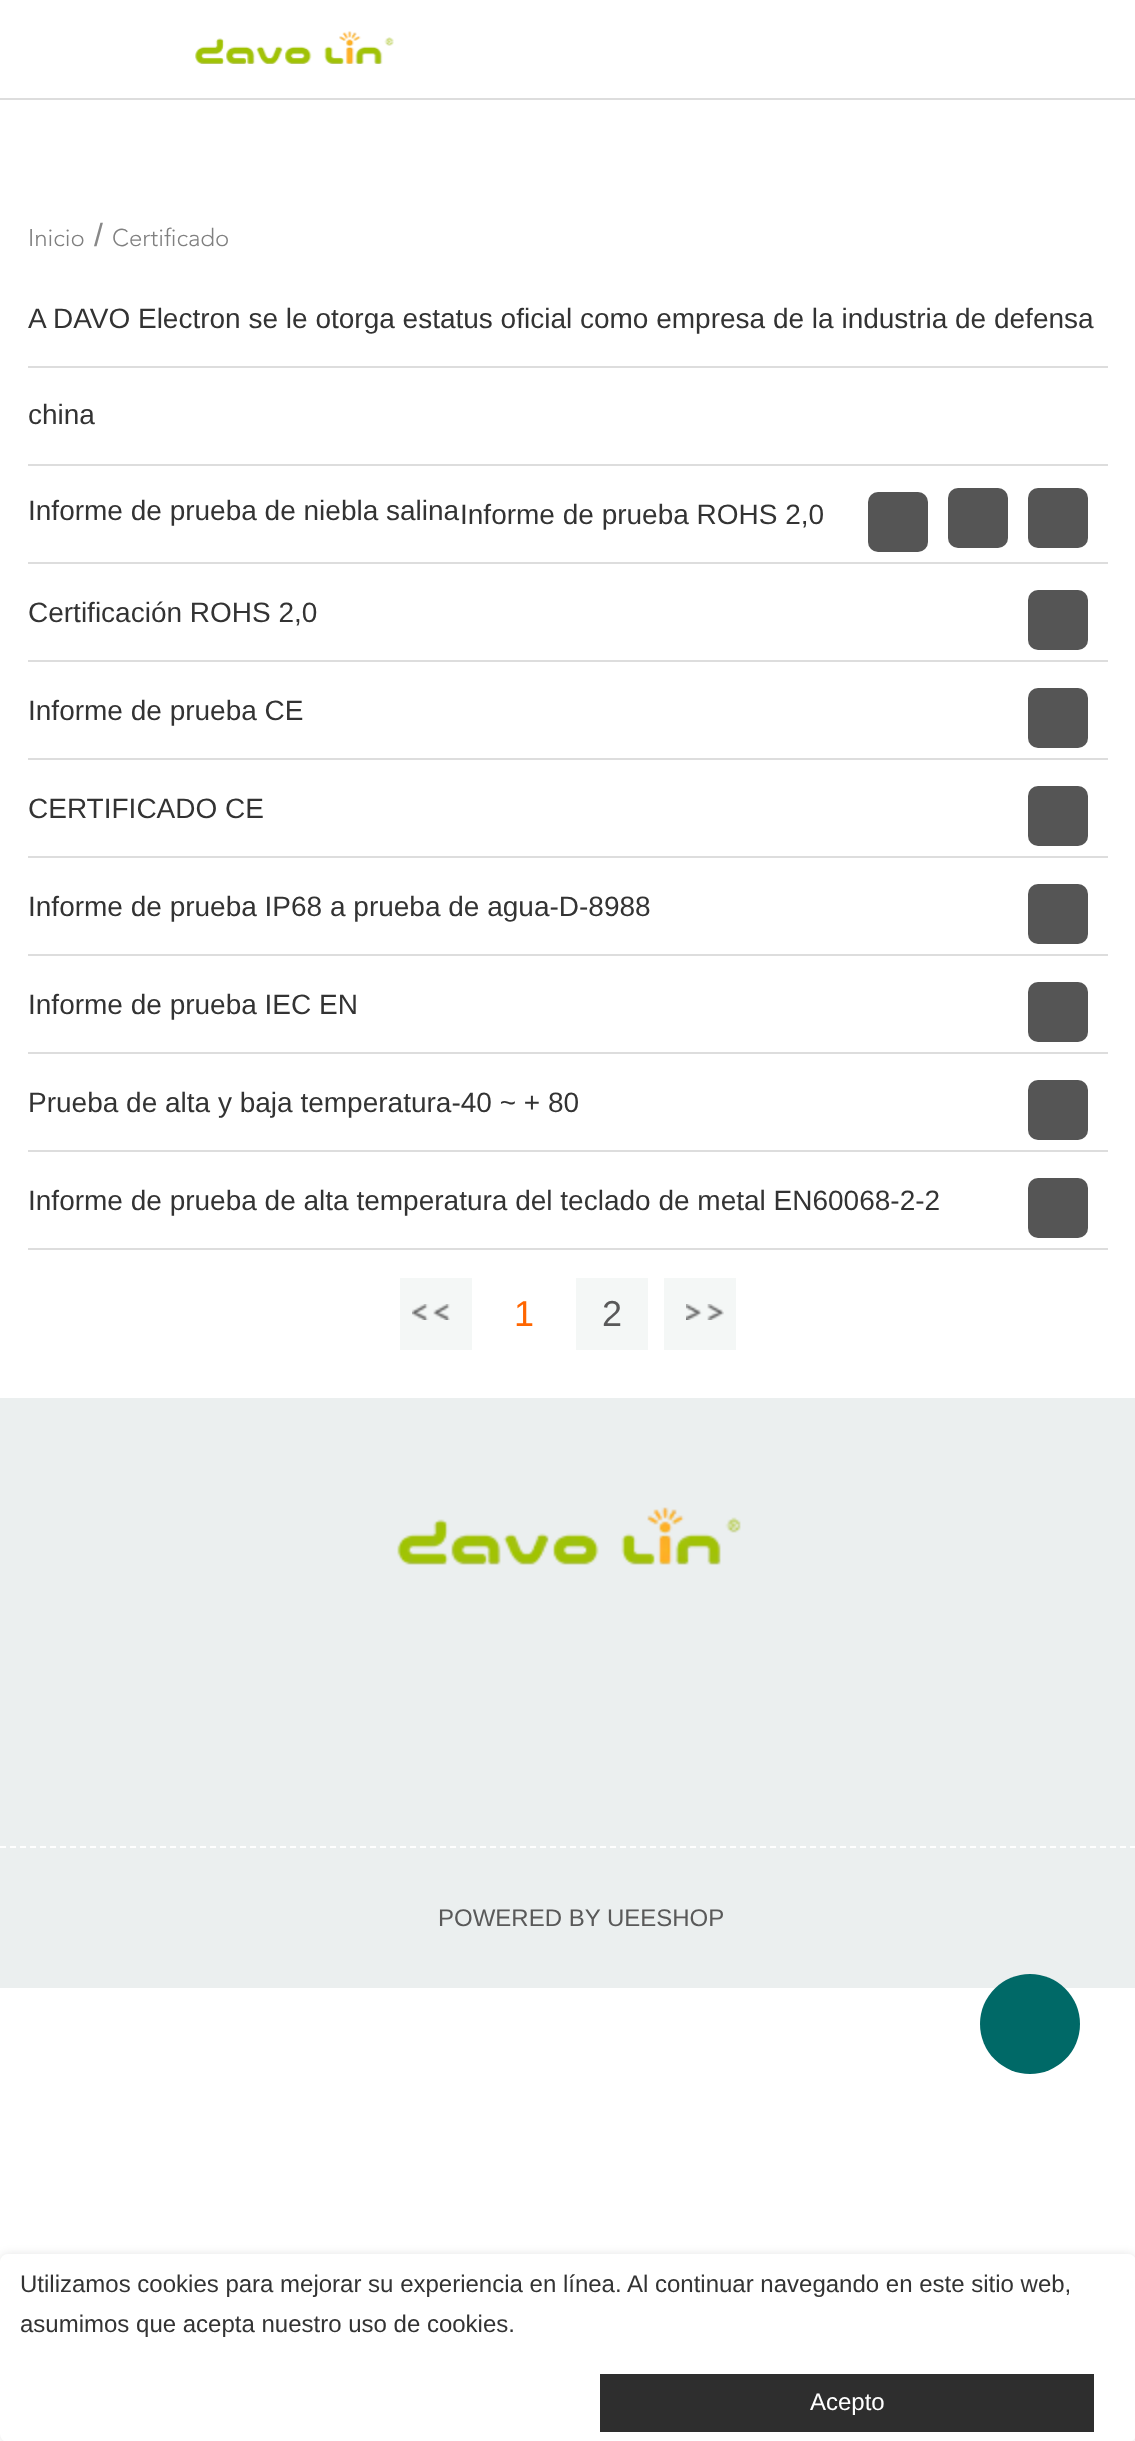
<!DOCTYPE html>
<meta charset="utf-8">
<style>body { margin: 0 } canvas { display: block }</style>
<canvas id="canvas" width="1135" height="2441"></canvas>
<script type="module">
  const canvas = document.getElementById("canvas");
  const g = canvas.getContext("2d");
  g.miterLimit = 4;
  g.fontKerning = "normal";
  function drawText(s, x, y, [font, color]) {
    g.font = font;
    g.fillStyle = color;
    g.fillText(s, x, y);
  }
  function fillBox(x, y, w, h, color) {
    g.fillStyle = color;
    g.fillRect(x, y, w, h);
  }
  function fillRounded(x, y, w, h, r, color) {
    g.fillStyle = color;
    g.beginPath();
    g.roundRect(x, y, w, h, r);
    g.fill();
  }
  async function drawPicture(src, x, y, w, h) {
    const img = new Image();
    img.src = src;
    await img.decode();
    g.drawImage(img, x, y, w, h);
  }

  const s1 = ["300 24px Avenir", "#808080"];
  const s2 = ["32px Liberation Sans", "#888888"];
  const s3 = ["28px Liberation Sans", "#333333"];
  const s4 = ["36px Liberation Sans", "#FF6600"];
  const s5 = ["36px Liberation Sans", "#595959"];
  const s6 = ["24px Liberation Sans", "#595959"];
  const s7 = ["24px Liberation Sans", "#333333"];
  const s8 = ["24px Liberation Sans", "#FFFFFF"];

  fillBox(0, 0, 1135, 2441, "#FFFFFF");
  fillBox(0, 98, 1135, 2, "#DDDDDD");
  await drawPicture("pic1.png", 195, 31, 199, 33);
  drawText("Inicio", 28, 246, s1);
  drawText("/", 94, 246, s2);
  drawText("Certificado", 112, 246, s1);
  fillBox(28, 366, 1080, 2, "#DDDDDD");
  drawText("A DAVO Electron se le otorga estatus oficial como empresa de la industria de defensa", 28, 328, s3);
  drawText("china", 28, 424, s3);
  fillRounded(1028, 488, 60, 60, 10, "#555555");
  fillBox(28, 464, 1080, 2, "#DDDDDD");
  drawText("Informe de prueba de niebla salina", 28, 520, s3);
  fillRounded(948, 488, 60, 60, 10, "#555555");
  fillBox(28, 562, 1080, 2, "#DDDDDD");
  drawText("Informe de prueba ROHS 2,0", 460, 524, s3);
  fillRounded(868, 492, 60, 60, 10, "#555555");
  fillBox(28, 660, 1080, 2, "#DDDDDD");
  drawText("Certificación ROHS 2,0", 28, 622, s3);
  fillRounded(1028, 590, 60, 60, 10, "#555555");
  fillBox(28, 758, 1080, 2, "#DDDDDD");
  drawText("Informe de prueba CE", 28, 720, s3);
  fillRounded(1028, 688, 60, 60, 10, "#555555");
  fillBox(28, 856, 1080, 2, "#DDDDDD");
  drawText("CERTIFICADO CE", 28, 818, s3);
  fillRounded(1028, 786, 60, 60, 10, "#555555");
  fillBox(28, 954, 1080, 2, "#DDDDDD");
  drawText("Informe de prueba IP68 a prueba de agua-D-8988", 28, 916, s3);
  fillRounded(1028, 884, 60, 60, 10, "#555555");
  fillBox(28, 1052, 1080, 2, "#DDDDDD");
  drawText("Informe de prueba IEC EN", 28, 1014, s3);
  fillRounded(1028, 982, 60, 60, 10, "#555555");
  fillBox(28, 1150, 1080, 2, "#DDDDDD");
  drawText("Prueba de alta y baja temperatura-40 ~ + 80", 28, 1112, s3);
  fillRounded(1028, 1080, 60, 60, 10, "#555555");
  fillBox(28, 1248, 1080, 2, "#DDDDDD");
  drawText("Informe de prueba de alta temperatura del teclado de metal EN60068-2-2", 28, 1210, s3);
  fillRounded(1028, 1178, 60, 60, 10, "#555555");
  fillBox(400, 1278, 72, 72, "#F4F7F6");
  await drawPicture("pic2.png", 412, 1304, 38, 16);
  drawText("1", 514, 1326, s4);
  fillBox(576, 1278, 72, 72, "#F4F7F6");
  drawText("2", 602, 1326, s5);
  fillBox(664, 1278, 72, 72, "#F4F7F6");
  await drawPicture("pic3.png", 686, 1304, 38, 16);
  fillBox(0, 1398, 1135, 590, "#EBEFEF");
  await drawPicture("pic4.png", 397, 1507, 344, 58);
  g.beginPath();
  g.moveTo(0, 1847);
  g.lineTo(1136, 1847);
  g.strokeStyle = "#FFFFFF";
  g.lineWidth = 2;
  g.setLineDash([6, 4]);
  g.stroke();
  drawText("POWERED BY UEESHOP", 438, 1926, s6);
  g.fillStyle = "#006967";
  g.beginPath();
  g.arc(1030, 2024, 50, 0, Math.PI * 2);
  g.fill();
  g.fillStyle = "rgba(0, 0, 0, 0.1)";
  g.filter = "blur(5px)";
  g.beginPath();
  g.roundRect(0, 2254, 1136, 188, 8);
  g.fill();
  g.filter = "none";
  fillRounded(0, 2254, 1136, 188, 8, "#FFFFFF");
  drawText("Utilizamos cookies para mejorar su experiencia en línea. Al continuar navegando en este sitio web,", 20, 2292, s7);
  drawText("asumimos que acepta nuestro uso de cookies.", 20, 2332, s7);
  fillBox(600, 2374, 494, 58, "#2E2E2E");
  drawText("Acepto", 810, 2410, s8);
</script>
